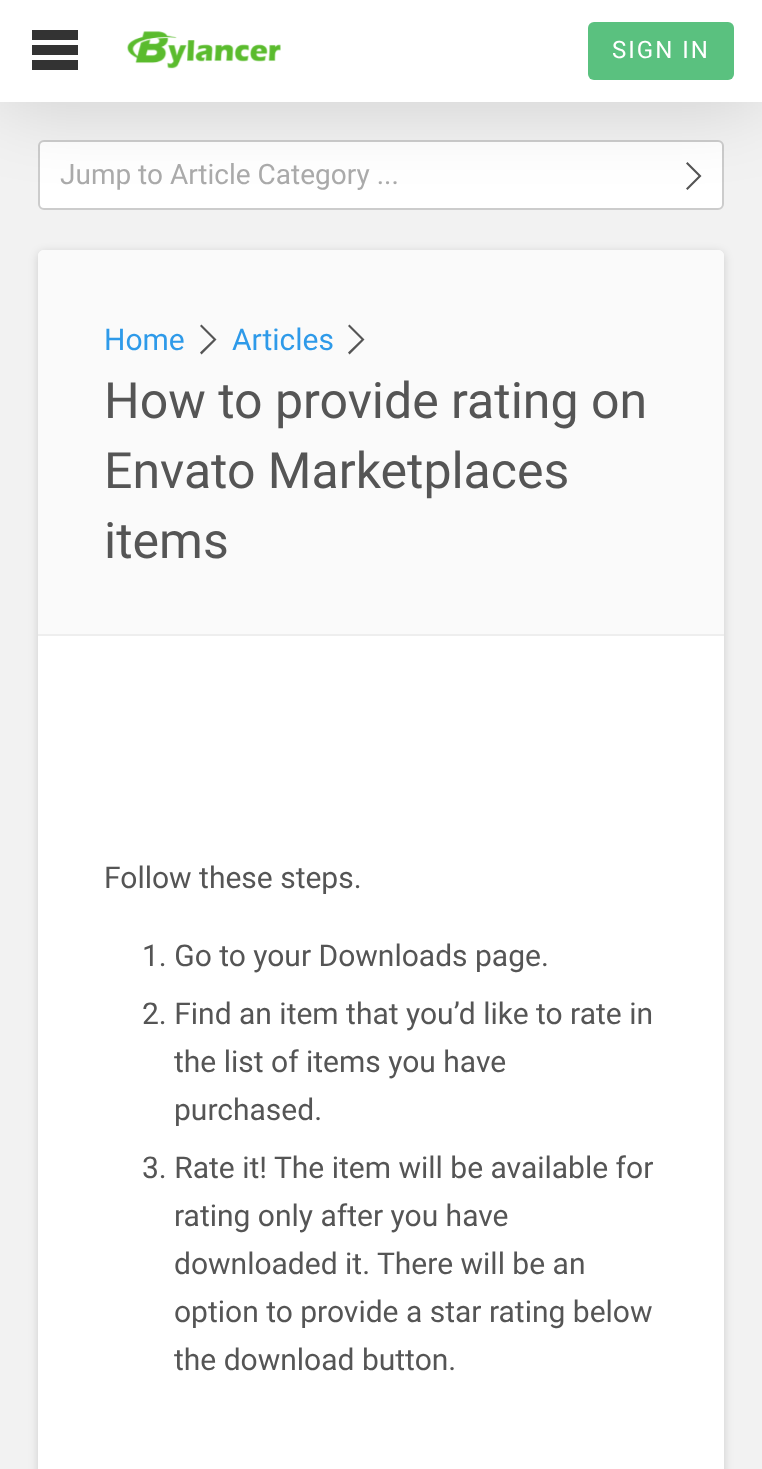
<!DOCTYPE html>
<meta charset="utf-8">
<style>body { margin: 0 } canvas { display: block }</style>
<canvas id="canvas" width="762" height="1469"></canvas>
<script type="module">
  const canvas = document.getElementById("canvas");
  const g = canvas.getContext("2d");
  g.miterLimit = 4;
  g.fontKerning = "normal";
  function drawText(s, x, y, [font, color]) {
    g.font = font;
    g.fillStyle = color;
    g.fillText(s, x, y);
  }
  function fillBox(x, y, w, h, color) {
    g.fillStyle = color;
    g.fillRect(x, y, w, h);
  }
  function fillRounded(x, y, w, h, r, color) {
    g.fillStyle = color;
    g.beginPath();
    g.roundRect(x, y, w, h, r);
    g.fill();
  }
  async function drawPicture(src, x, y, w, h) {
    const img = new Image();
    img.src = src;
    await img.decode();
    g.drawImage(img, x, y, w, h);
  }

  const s1 = ["24px Roboto", "#FFFFFF"];
  const s2 = ["28px Roboto", "#AAAAAA"];
  const s3 = ["30px Roboto", "#2E9AE9"];
  const s4 = ["50px Roboto", "#555555"];
  const s5 = ["30px Roboto", "#555555"];

  fillBox(0, 0, 762, 1469, "#F2F2F2");
  g.fillStyle = "#FFFFFF";
  g.beginPath();
  g.roundRect(39, 141, 684, 68, 5);
  g.fill();
  g.strokeStyle = "#CCCCCC";
  g.lineWidth = 2;
  g.stroke();
  g.fillStyle = "#555555";
  g.beginPath();
  g.moveTo(687.5, 162);
  g.lineTo(701.5, 176);
  g.lineTo(687.5, 190);
  g.lineTo(686, 188.5);
  g.lineTo(698.5, 176);
  g.lineTo(686, 163.5);
  g.closePath();
  g.fill();
  g.fillStyle = "rgba(0, 0, 0, 0.15)";
  g.filter = "blur(40px)";
  g.beginPath();
  g.rect(0, 2, 762, 102);
  g.fill();
  g.filter = "none";
  fillBox(0, 0, 762, 102, "#FFFFFF");
  g.fillStyle = "#333333";
  g.beginPath();
  g.moveTo(32, 30);
  g.lineTo(78, 30);
  g.lineTo(78, 40);
  g.lineTo(32, 40);
  g.closePath();
  g.moveTo(32, 45);
  g.lineTo(78, 45);
  g.lineTo(78, 55);
  g.lineTo(32, 55);
  g.closePath();
  g.moveTo(32, 60);
  g.lineTo(78, 60);
  g.lineTo(78, 70);
  g.lineTo(32, 70);
  g.closePath();
  g.fill();
  await drawPicture("pic1.png", 127, 31, 154, 38);
  fillRounded(588, 22, 146, 58, 6, "#5AC17F");
  g.letterSpacing = "2px";
  drawText("SIGN IN", 612, 58, s1);
  g.letterSpacing = "0px";
  drawText("Jump to Article Category ...", 60, 184, s2);
  g.fillStyle = "rgba(0, 0, 0, 0.15)";
  g.filter = "blur(5px)";
  g.beginPath();
  g.roundRect(38, 252, 686, 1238, 6);
  g.fill();
  g.filter = "none";
  fillRounded(38, 250, 686, 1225, 6, "#FFFFFF");
  g.fillStyle = "#FAFAFA";
  g.beginPath();
  g.roundRect(38, 250, 686, 386, [6, 6, 0, 0]);
  g.fill();
  fillBox(38, 634, 686, 2, "#EEEEEE");
  drawText("Home", 104, 350, s3);
  g.fillStyle = "#555555";
  g.beginPath();
  g.moveTo(201.5, 324.5);
  g.lineTo(216.5, 339.5);
  g.lineTo(201.5, 354.5);
  g.lineTo(200, 352.5);
  g.lineTo(213.5, 339.5);
  g.lineTo(200, 326);
  g.closePath();
  g.fill();
  drawText("Articles", 232, 350, s3);
  g.fillStyle = "#555555";
  g.beginPath();
  g.moveTo(349.5, 324.5);
  g.lineTo(364.5, 339.5);
  g.lineTo(349.5, 354.5);
  g.lineTo(348, 352.5);
  g.lineTo(361.5, 339.5);
  g.lineTo(348, 326);
  g.closePath();
  g.fill();
  drawText("How to provide rating on", 104, 418, s4);
  drawText("Envato Marketplaces", 104, 488, s4);
  drawText("items", 104, 558, s4);
  drawText("Follow these steps.", 104, 888, s5);
  drawText("1. Go to your Downloads page.", 142, 966, s5);
  drawText("2. Find an item that you’d like to rate in", 142, 1024, s5);
  drawText("the list of items you have", 174, 1072, s5);
  drawText("purchased.", 174, 1120, s5);
  drawText("3. Rate it! The item will be available for", 142, 1178, s5);
  drawText("rating only after you have", 174, 1226, s5);
  drawText("downloaded it. There will be an", 174, 1274, s5);
  drawText("option to provide a star rating below", 174, 1322, s5);
  drawText("the download button.", 174, 1370, s5);
</script>
